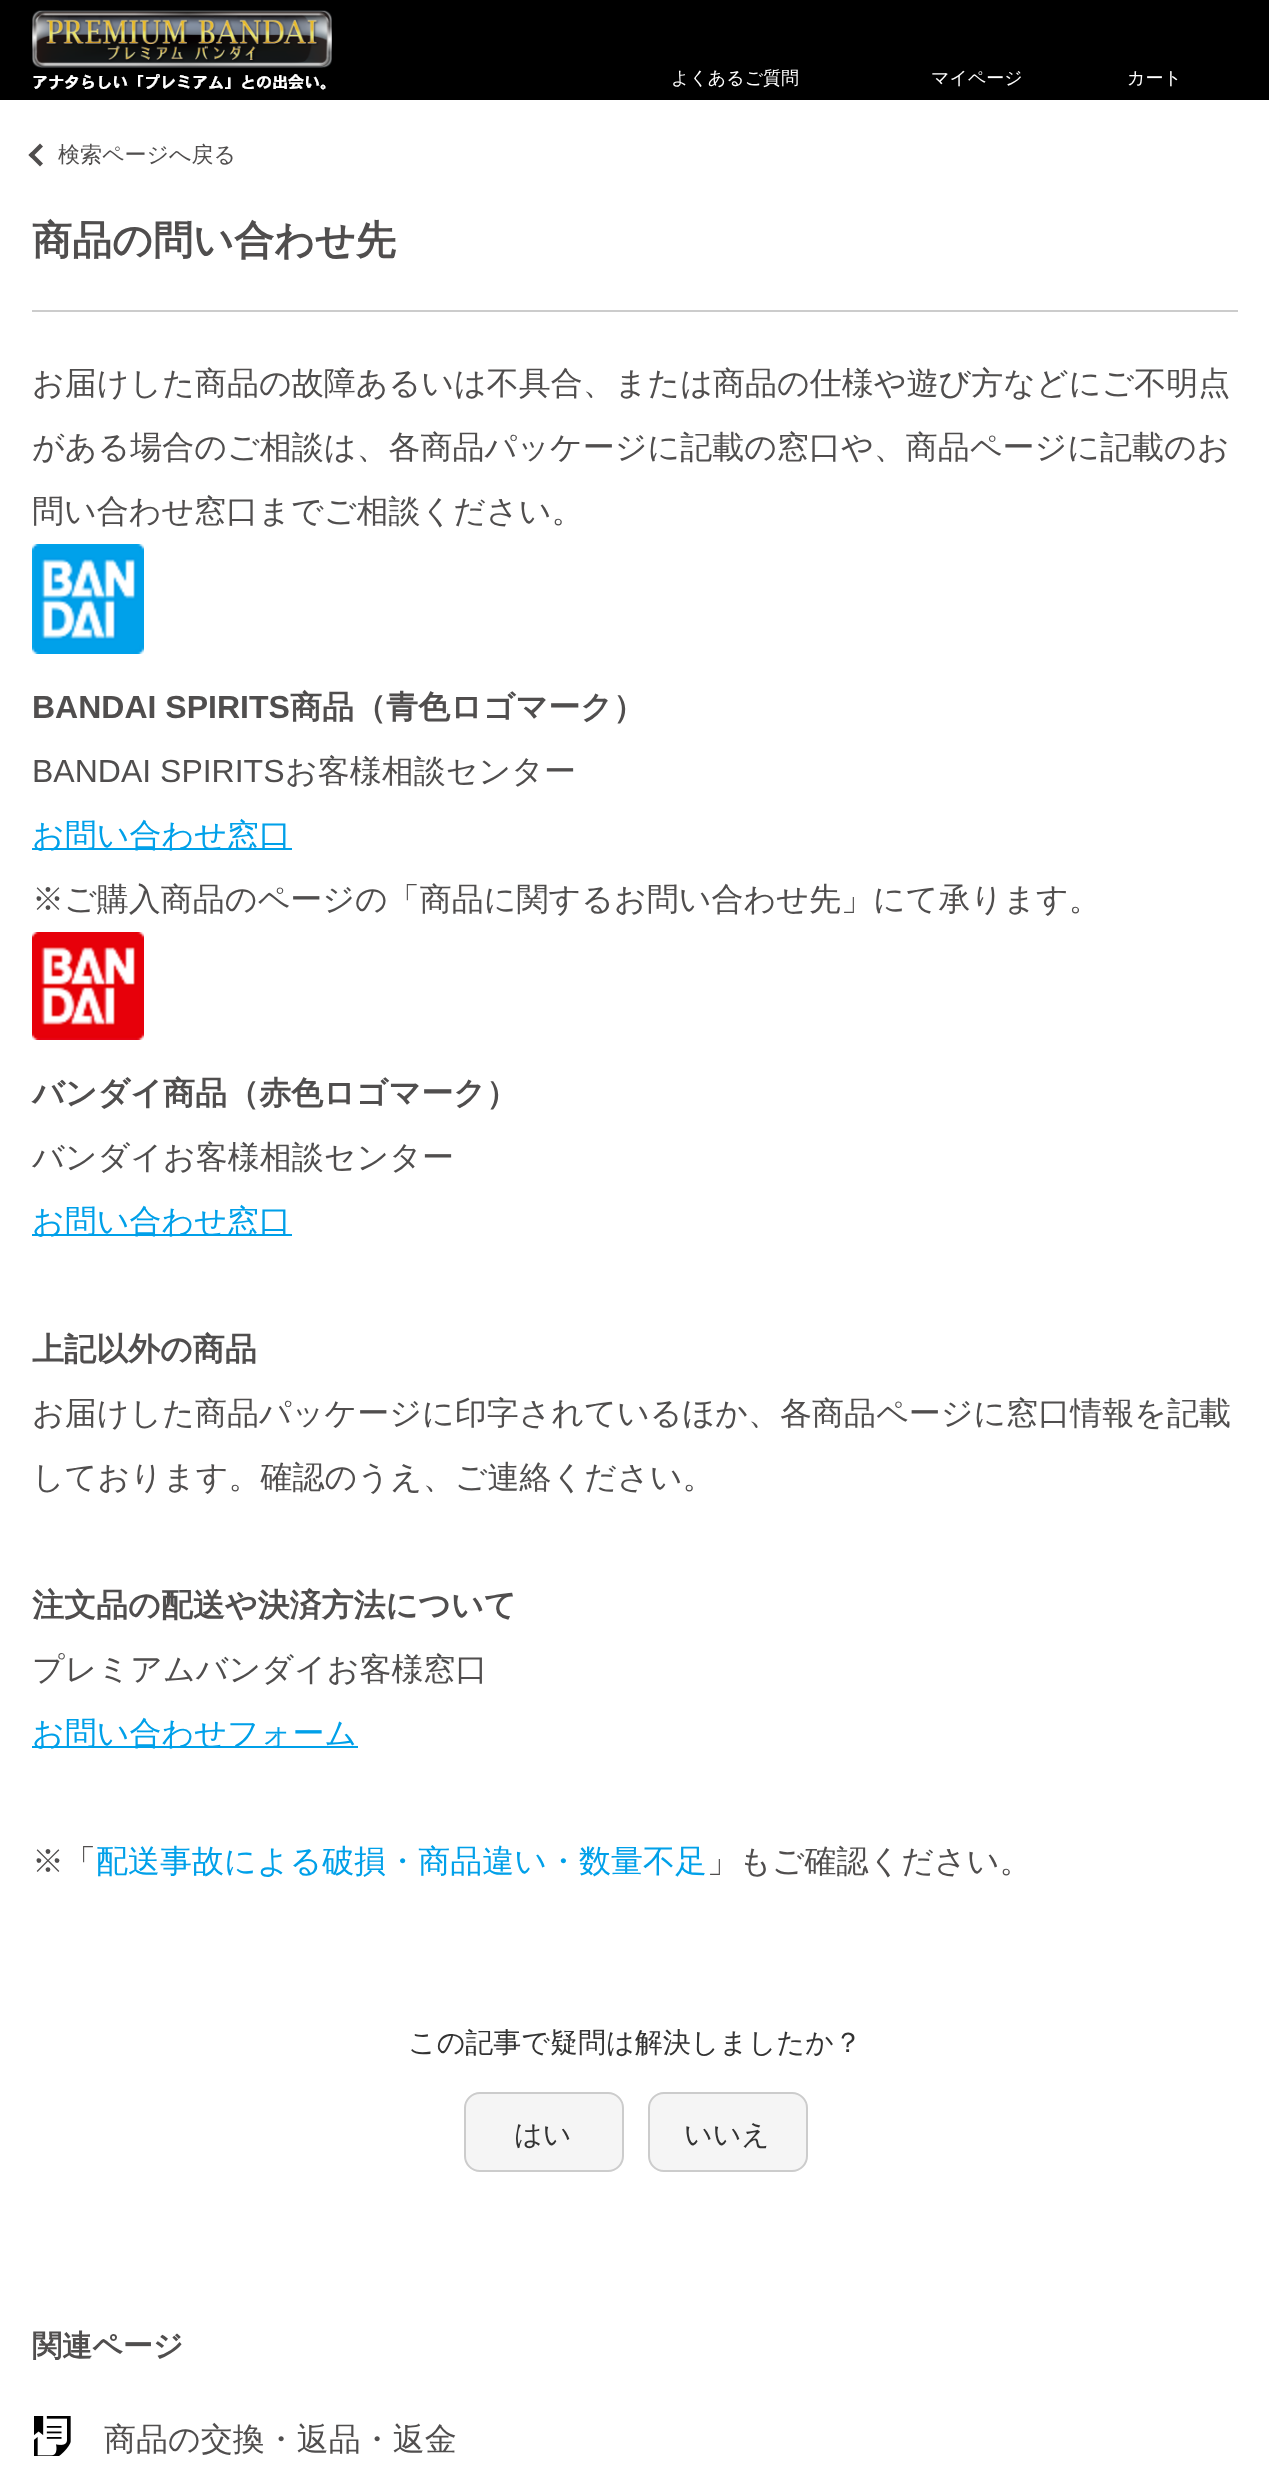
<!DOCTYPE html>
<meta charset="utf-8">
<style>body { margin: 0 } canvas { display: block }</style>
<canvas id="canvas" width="1269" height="2489"></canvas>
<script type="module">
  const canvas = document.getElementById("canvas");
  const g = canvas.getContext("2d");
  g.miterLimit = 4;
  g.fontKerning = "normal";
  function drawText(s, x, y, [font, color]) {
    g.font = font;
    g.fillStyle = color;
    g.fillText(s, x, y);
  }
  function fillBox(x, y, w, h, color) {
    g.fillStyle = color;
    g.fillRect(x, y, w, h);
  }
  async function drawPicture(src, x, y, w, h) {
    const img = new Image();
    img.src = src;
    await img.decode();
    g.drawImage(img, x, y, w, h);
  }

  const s1 = ["500 18px WenQuanYi Zen Hei", "#FFFFFF"];
  const s2 = ["500 22px WenQuanYi Zen Hei", "#504E4E"];
  const s3 = ["bold 40px WenQuanYi Zen Hei", "#504E4E"];
  const s4 = ["500 32px WenQuanYi Zen Hei", "#504E4E"];
  const s5 = ["bold 32px Liberation Sans", "#504E4E"];
  const s6 = ["bold 32px WenQuanYi Zen Hei", "#504E4E"];
  const s7 = ["32px Liberation Sans", "#504E4E"];
  const s8 = ["500 32px WenQuanYi Zen Hei", "#00A0E9"];
  const s9 = ["500 28px WenQuanYi Zen Hei", "#333333"];
  const s10 = ["bold 30px WenQuanYi Zen Hei", "#504E4E"];

  fillBox(0, 0, 1269, 2489, "#FFFFFF");
  fillBox(0, 0, 1269, 100, "#000000");
  await drawPicture("pic1.png", 32, 10, 300, 80);
  drawText("よくあるご質問", 671, 84, s1);
  drawText("マイページ", 931, 84, s1);
  drawText("カート", 1127, 84, s1);
  g.fillStyle = "#504E4E";
  g.beginPath();
  g.moveTo(28.5, 155);
  g.lineTo(40, 143.5);
  g.lineTo(43, 146.5);
  g.lineTo(31.5, 158);
  g.closePath();
  g.fill();
  g.beginPath();
  g.moveTo(28.5, 155);
  g.lineTo(31.5, 152);
  g.lineTo(43, 163.5);
  g.lineTo(40, 166.5);
  g.closePath();
  g.fill();
  drawText("検索ページへ戻る", 58, 162, s2);
  fillBox(32, 310, 1206, 2, "#CCCCCC");
  drawText("商品の問い合わせ先", 32, 254, s3);
  drawText("お届けした商品の故障あるいは不具合、または商品の仕様や遊び方などにご不明点", 32, 394, s4);
  drawText("がある場合のご相談は、各商品パッケージに記載の窓口や、商品ページに記載のお", 32, 458, s4);
  drawText("問い合わせ窓口までご相談ください。", 32, 522, s4);
  await drawPicture("pic2.png", 32, 544, 112, 110);
  drawText("BANDAI SPIRITS", 32, 718, s5);
  drawText("商品（青色ロゴマーク）", 290, 718, s6);
  drawText("BANDAI SPIRITS", 32, 782, s7);
  drawText("お客様相談センター", 285, 782, s4);
  fillBox(32, 848, 260, 2, "#00A0E9");
  drawText("お問い合わせ窓口", 32, 846, s8);
  drawText("※ご購入商品のページの「商品に関するお問い合わせ先」にて承ります。", 32, 910, s4);
  await drawPicture("pic3.png", 32, 932, 112, 108);
  drawText("バンダイ商品（赤色ロゴマーク）", 32, 1104, s6);
  drawText("バンダイお客様相談センター", 32, 1168, s4);
  fillBox(32, 1234, 260, 2, "#00A0E9");
  drawText("お問い合わせ窓口", 32, 1232, s8);
  drawText("上記以外の商品", 32, 1360, s6);
  drawText("お届けした商品パッケージに印字されているほか、各商品ページに窓口情報を記載", 32, 1424, s4);
  drawText("しております。確認のうえ、ご連絡ください。", 32, 1488, s4);
  drawText("注文品の配送や決済方法について", 32, 1616, s6);
  drawText("プレミアムバンダイお客様窓口", 32, 1680, s4);
  fillBox(32, 1746, 326, 2, "#00A0E9");
  drawText("お問い合わせフォーム", 32, 1744, s8);
  drawText("※「", 32, 1872, s4);
  drawText("配送事故による破損・商品違い・数量不足", 96, 1872, s8);
  drawText("」もご確認ください。", 707, 1872, s4);
  drawText("この記事で疑問は解決しましたか？", 408, 2052, s9);
  g.fillStyle = "#F5F5F5";
  g.beginPath();
  g.roundRect(465, 2093, 158, 78, 15);
  g.fill();
  g.strokeStyle = "#CCCCCC";
  g.lineWidth = 2;
  g.stroke();
  drawText("はい", 514, 2144, s9);
  g.fillStyle = "#F5F5F5";
  g.beginPath();
  g.roundRect(649, 2093, 158, 78, 15);
  g.fill();
  g.stroke();
  drawText("いいえ", 684, 2144, s9);
  drawText("関連ページ", 32, 2356, s10);
  await drawPicture("pic4.png", 34, 2416, 37, 40);
  drawText("商品の交換・返品・返金", 104, 2450, s4);
</script>
